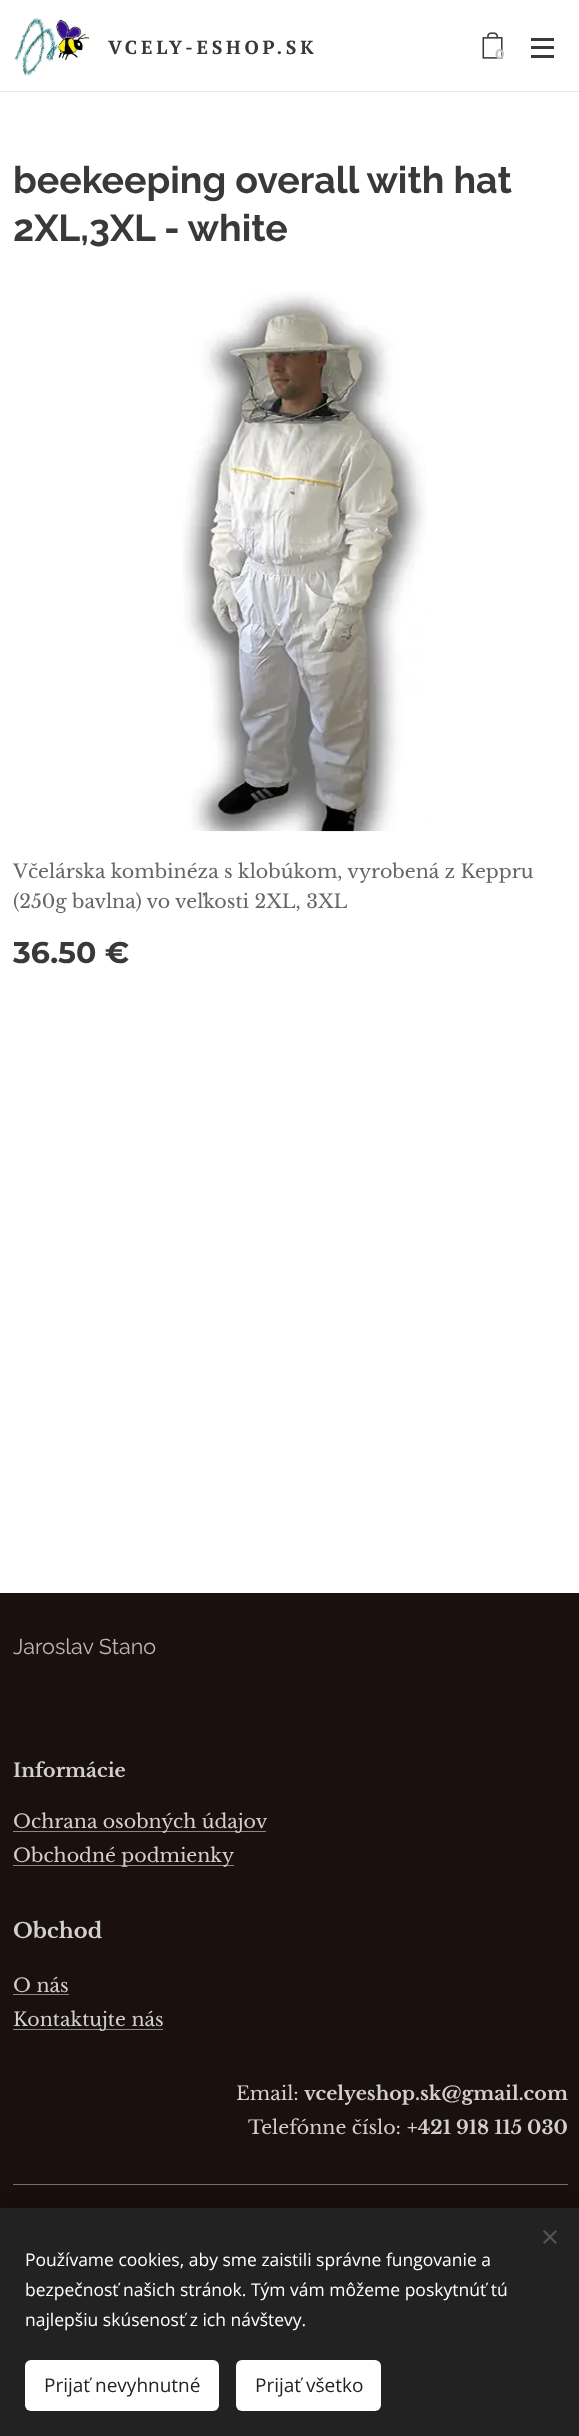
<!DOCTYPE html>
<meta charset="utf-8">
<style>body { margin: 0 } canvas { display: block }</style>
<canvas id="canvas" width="579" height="2436"></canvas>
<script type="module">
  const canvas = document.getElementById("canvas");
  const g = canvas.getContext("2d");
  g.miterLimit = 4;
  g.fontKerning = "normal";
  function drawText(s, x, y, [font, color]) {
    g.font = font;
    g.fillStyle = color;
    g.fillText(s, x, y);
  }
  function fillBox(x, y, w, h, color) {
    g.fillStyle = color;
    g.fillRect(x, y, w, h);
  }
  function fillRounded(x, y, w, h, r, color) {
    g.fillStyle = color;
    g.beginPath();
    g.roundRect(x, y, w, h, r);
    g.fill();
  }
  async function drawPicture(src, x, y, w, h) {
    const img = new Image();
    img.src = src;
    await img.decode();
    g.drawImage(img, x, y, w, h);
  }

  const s1 = ["bold 19px PT Serif", "#393939"];
  const s2 = ["bold 14px Montserrat", "#C4C4C4"];
  const s3 = ["bold 37.5px Raleway", "#393939"];
  const s4 = ["19px Libre Baskerville", "#666666"];
  const s5 = ["bold 30px Montserrat", "#393939"];
  const s6 = ["21.5px Raleway", "#BAB7B7"];
  const s7 = ["bold 19px Libre Baskerville", "#D1CFCF"];
  const s8 = ["19px Libre Baskerville", "#D1CFCF"];
  const s9 = ["bold 21px Libre Baskerville", "#D1CFCF"];
  const s10 = ["17.5px Open Sans", "#FFFFFF"];
  const s11 = ["19px Open Sans", "#222222"];

  fillBox(0, 0, 579, 2436, "#FFFFFF");
  await drawPicture("pic1.png", 14, 17, 76, 59);
  g.letterSpacing = "3.75px";
  drawText("VCELY-ESHOP.SK", 108, 54, s1);
  await drawPicture("pic2.png", 482, 32, 21, 27);
  g.letterSpacing = "0px";
  drawText("0", 495, 59, s2);
  fillBox(531, 46, 23, 3, "#393939");
  fillBox(531, 38, 23, 3, "#393939");
  fillBox(531, 55, 23, 3, "#393939");
  fillBox(0, 91, 579, 1, "#E8E8E8");
  drawText("beekeeping overall with hat", 13, 193, s3);
  drawText("2XL,3XL - white", 13, 241, s3);
  await drawPicture("pic3.png", 182, 291, 245, 541);
  drawText("Včelárska kombinéza s klobúkom, vyrobená z Keppru", 13, 878, s4);
  drawText("(250g bavlna) vo veľkosti 2XL, 3XL", 13, 908, s4);
  drawText("36.50 €", 13, 963, s5);
  fillBox(0, 1593, 579, 615, "#1A100E");
  drawText("Jaroslav Stano", 13, 1654, s6);
  drawText("Informácie", 13, 1777, s7);
  fillBox(13, 1831, 253, 1, "#8D8887");
  drawText("Ochrana osobných údajov", 13, 1828, s8);
  fillBox(13, 1865, 221, 1, "#8D8887");
  drawText("Obchodné podmienky", 13, 1862, s8);
  drawText("Obchod", 13, 1938, s9);
  drawText("O nás", 13, 1992, s8);
  fillBox(13, 1994, 56, 1, "#8D8887");
  fillBox(13, 2029, 150, 1, "#8D8887");
  drawText("Kontaktujte nás", 13, 2026, s8);
  drawText("Email:", 236, 2100, s8);
  drawText("vcelyeshop.sk@gmail.com", 304, 2100, s7);
  drawText("Telefónne číslo:", 248, 2134, s8);
  drawText("+421 918 115 030", 407, 2134, s7);
  fillBox(13, 2184, 555, 1, "#76706E");
  g.fillStyle = "rgba(0, 0, 0, 0.33)";
  g.filter = "blur(15.5px)";
  g.beginPath();
  g.rect(0, 2208, 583, 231);
  g.fill();
  g.filter = "none";
  fillBox(0, 2208, 579, 228, "#222222");
  g.fillStyle = "#555555";
  g.beginPath();
  g.moveTo(543, 2242.5);
  g.lineTo(555.5, 2230);
  g.lineTo(557, 2231.5);
  g.lineTo(544.5, 2244);
  g.closePath();
  g.fill();
  g.beginPath();
  g.moveTo(544.5, 2230);
  g.lineTo(557, 2242.5);
  g.lineTo(555.5, 2244);
  g.lineTo(543, 2231.5);
  g.closePath();
  g.fill();
  drawText("Používame cookies, aby sme zaistili správne fungovanie a", 25, 2266, s10);
  drawText("bezpečnosť našich stránok. Tým vám môžeme poskytnúť tú", 25, 2296, s10);
  drawText("najlepšiu skúsenosť z ich návštevy.", 25, 2326, s10);
  fillRounded(25, 2360, 194, 51, 6, "#FFFFFF");
  drawText("Prijať nevyhnutné", 44, 2392, s11);
  fillRounded(236, 2360, 145, 51, 6, "#FFFFFF");
  drawText("Prijať všetko", 255, 2392, s11);
</script>
